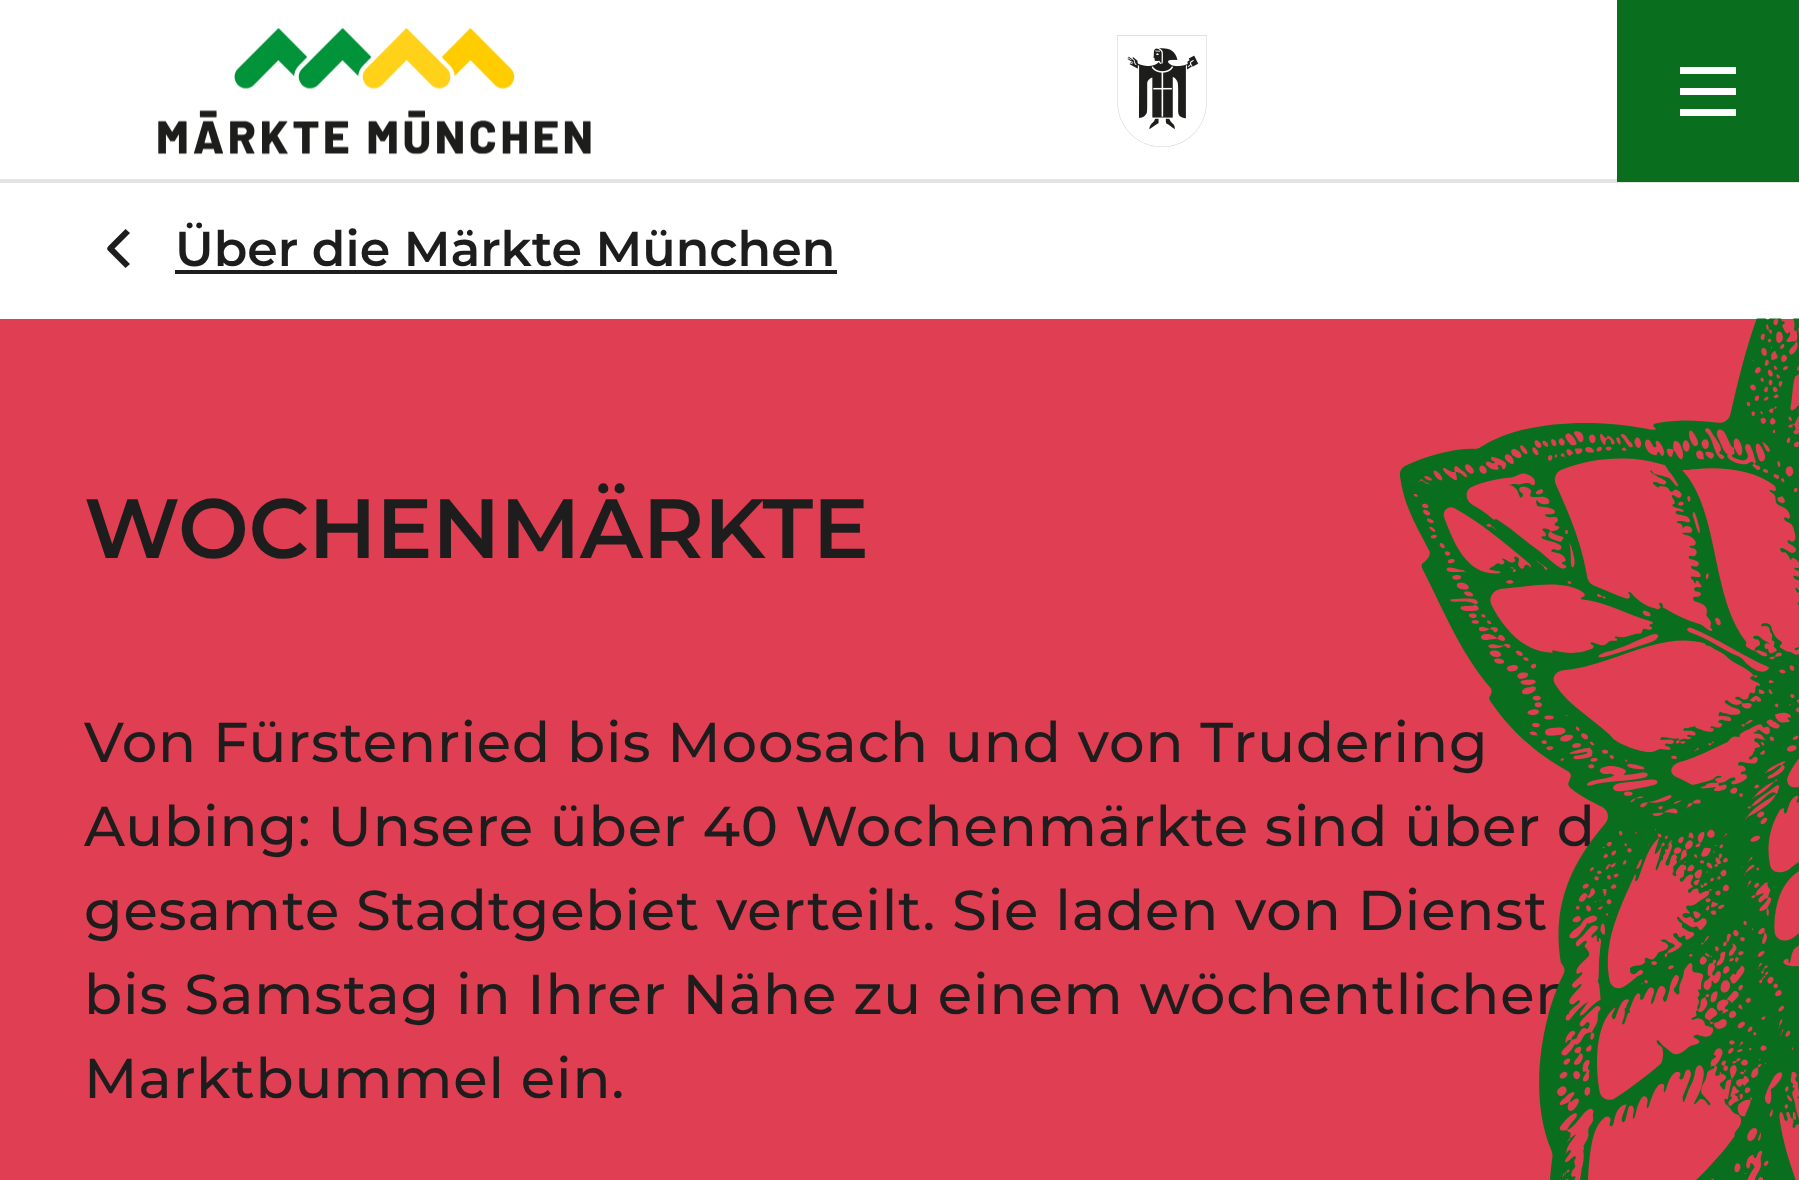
<!DOCTYPE html>
<meta charset="utf-8">
<style>body { margin: 0 } canvas { display: block }</style>
<canvas id="canvas" width="1799" height="1180"></canvas>
<script type="module">
  const canvas = document.getElementById("canvas");
  const g = canvas.getContext("2d");
  g.miterLimit = 4;
  g.fontKerning = "normal";
  function drawText(s, x, y, [font, color]) {
    g.font = font;
    g.fillStyle = color;
    g.fillText(s, x, y);
  }
  function fillBox(x, y, w, h, color) {
    g.fillStyle = color;
    g.fillRect(x, y, w, h);
  }
  async function drawPicture(src, x, y, w, h) {
    const img = new Image();
    img.src = src;
    await img.decode();
    g.drawImage(img, x, y, w, h);
  }

  const s1 = ["100 49px Montserrat", "#1D1D1D"];
  const s2 = ["100 84px Montserrat", "#1D1D1D"];
  const s3 = ["100 56px 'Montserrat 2'", "#1D1D1D"];

  fillBox(0, 0, 1799, 1180, "#FFFFFF");
  fillBox(0, 179, 1799, 4, "#E4E4E4");
  await drawPicture("pic1.png", 158, 28, 433, 127);
  await drawPicture("pic2.png", 1117, 35, 90, 112);
  fillBox(1617, 0, 182, 182, "#096F1E");
  g.fillStyle = "#FFFFFF";
  g.beginPath();
  g.moveTo(1680, 67);
  g.lineTo(1736, 67);
  g.lineTo(1736, 74);
  g.lineTo(1680, 74);
  g.closePath();
  g.moveTo(1680, 88);
  g.lineTo(1736, 88);
  g.lineTo(1736, 95);
  g.lineTo(1680, 95);
  g.closePath();
  g.moveTo(1680, 109);
  g.lineTo(1736, 109);
  g.lineTo(1736, 116);
  g.lineTo(1680, 116);
  g.closePath();
  g.fill();
  g.fillStyle = "#1D1D1D";
  g.beginPath();
  g.moveTo(125.5, 268);
  g.lineTo(130, 264);
  g.lineTo(114.5, 248.5);
  g.lineTo(130, 233);
  g.lineTo(125.5, 229);
  g.lineTo(111, 243.5);
  g.bezierCurveTo(109.5, 245, 105.5, 248, 108, 250.5);
  g.closePath();
  g.fill();
  drawText("Über die Märkte München", 175, 266, s1);
  fillBox(175, 270, 662, 4, "#1D1D1D");
  fillBox(0, 319, 1799, 861, "#E03E52");
  g.letterSpacing = "-0.25px";
  drawText("WOCHENMÄRKTE", 84, 558, s2);
  g.letterSpacing = "0.85px";
  drawText("Von Fürstenried bis Moosach und von Trudering", 84, 762, s3);
  drawText("Aubing: Unsere über 40 Wochenmärkte sind über d", 84, 846, s3);
  drawText("gesamte Stadtgebiet verteilt. Sie laden von Dienst", 84, 930, s3);
  drawText("bis Samstag in Ihrer Nähe zu einem wöchentlichen", 84, 1014, s3);
  drawText("Marktbummel ein.", 84, 1098, s3);
  await drawPicture("pic3.png", 1400, 318, 399, 862);
</script>
